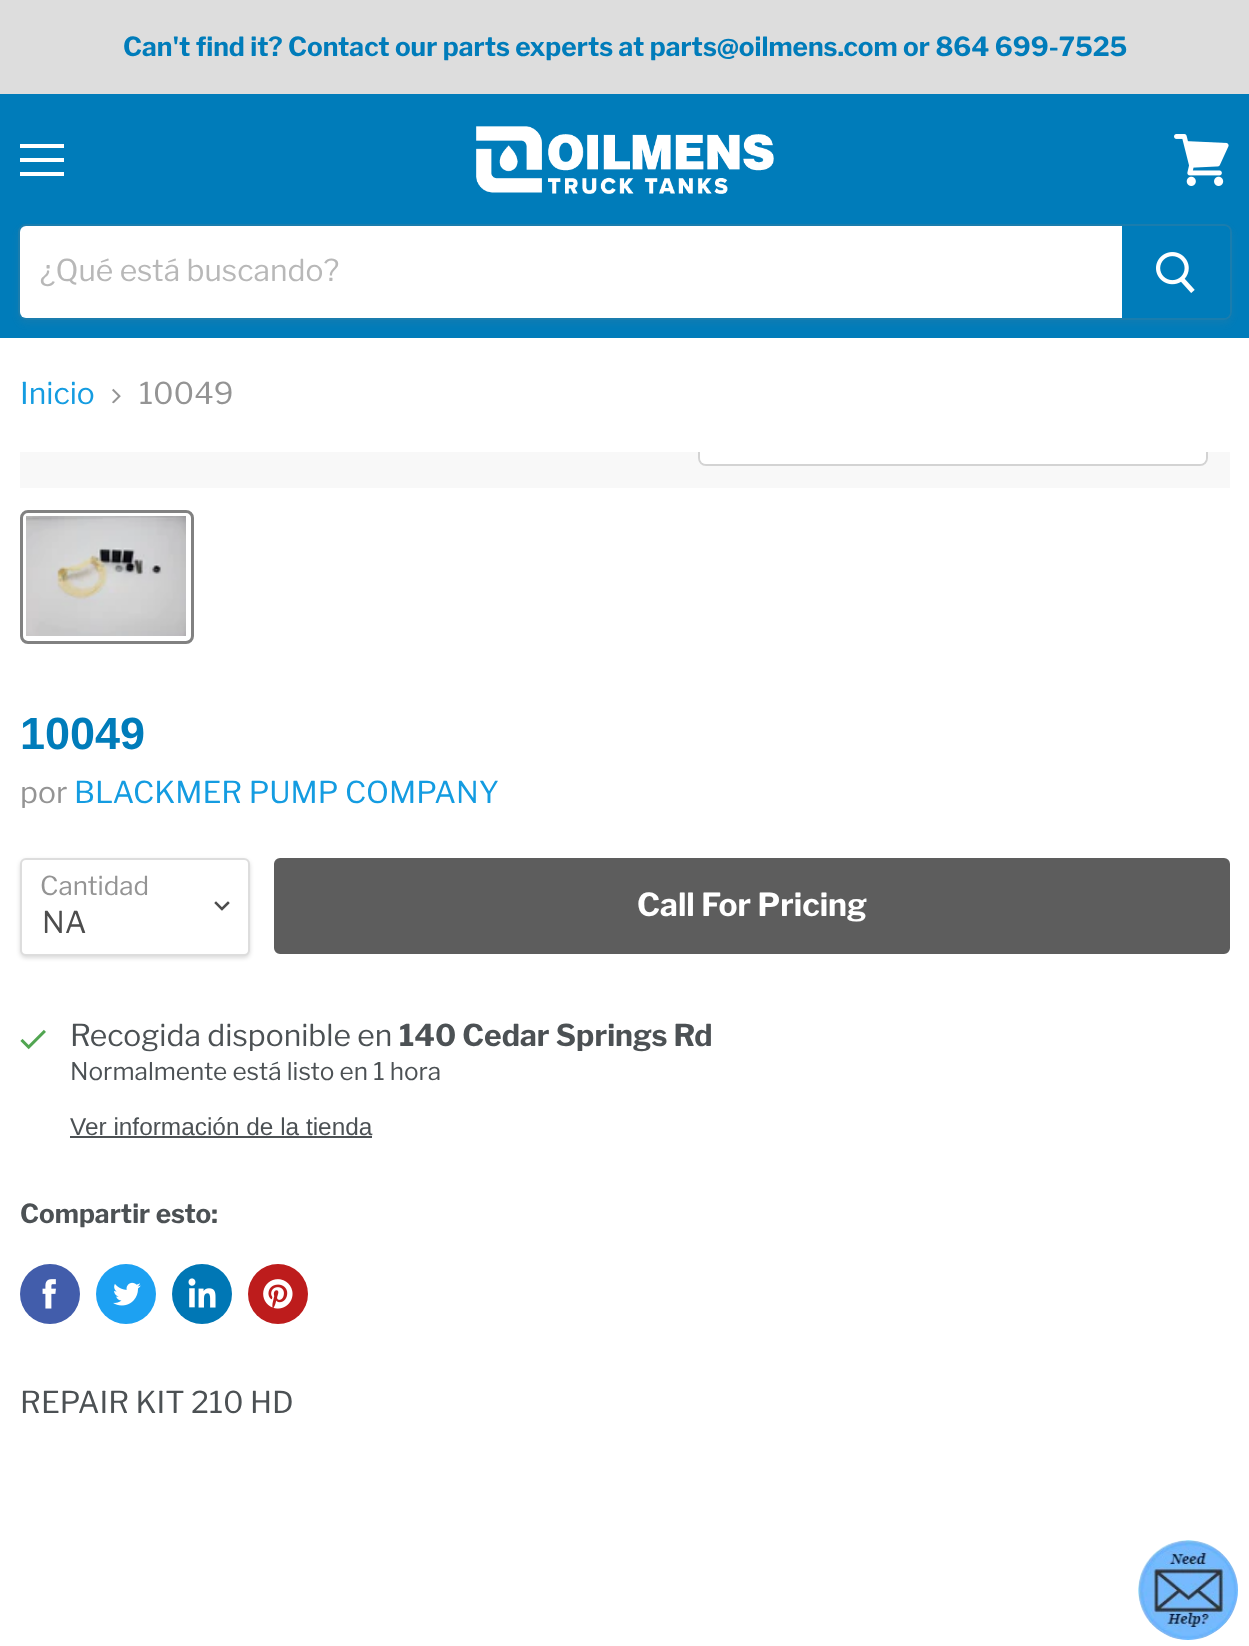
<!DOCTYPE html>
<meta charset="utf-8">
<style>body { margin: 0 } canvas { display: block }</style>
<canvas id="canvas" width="1249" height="1646"></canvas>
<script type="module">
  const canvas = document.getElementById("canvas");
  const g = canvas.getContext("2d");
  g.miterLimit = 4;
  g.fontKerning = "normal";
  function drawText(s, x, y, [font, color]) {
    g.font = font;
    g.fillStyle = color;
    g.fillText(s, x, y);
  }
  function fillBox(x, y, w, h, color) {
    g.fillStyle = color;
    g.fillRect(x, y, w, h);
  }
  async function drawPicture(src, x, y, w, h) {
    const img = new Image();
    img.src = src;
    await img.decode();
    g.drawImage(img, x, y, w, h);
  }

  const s1 = ["bold 26.25px Libre Franklin", "#007CBA"];
  const s2 = ["30px Libre Franklin", "#B8B8B8"];
  const s3 = ["30px Libre Franklin", "#149CE1"];
  const s4 = ["30px Libre Franklin", "#949494"];
  const s5 = ["bold 45px Arimo", "#007CBA"];
  const s6 = ["26px Libre Franklin", "#949494"];
  const s7 = ["30px Libre Franklin", "#4D4D4D"];
  const s8 = ["bold 31.75px Libre Franklin", "#FFFFFF"];
  const s9 = ["30px Libre Franklin", "#4C5154"];
  const s10 = ["bold 30px Libre Franklin", "#4C5154"];
  const s11 = ["24.4px Libre Franklin", "#4C5154"];
  const s12 = ["24.4px Liberation Sans", "#4C5154"];
  const s13 = ["bold 26.25px Libre Franklin", "#4C5154"];

  fillBox(0, 0, 1249, 1646, "#FFFFFF");
  fillBox(0, 0, 1249, 94, "#DDDDDD");
  drawText("Can't find it? Contact our parts experts at parts@oilmens.com or 864 699-7525", 123, 56, s1);
  fillBox(0, 94, 1249, 244, "#007CBA");
  fillBox(20, 144, 44, 4, "#FFFFFF");
  fillBox(20, 158, 44, 4, "#FFFFFF");
  fillBox(20, 172, 44, 4, "#FFFFFF");
  await drawPicture("pic1.png", 1174, 134, 55, 52);
  await drawPicture("pic2.png", 476, 126, 298, 68);
  g.save();
  g.beginPath();
  g.moveTo(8, 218);
  g.lineTo(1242, 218);
  g.lineTo(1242, 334);
  g.lineTo(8, 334);
  g.closePath();
  g.moveTo(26, 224);
  g.lineTo(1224, 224);
  g.bezierCurveTo(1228.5, 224, 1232, 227.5, 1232, 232);
  g.lineTo(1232, 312);
  g.bezierCurveTo(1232, 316.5, 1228.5, 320, 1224, 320);
  g.lineTo(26, 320);
  g.bezierCurveTo(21.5, 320, 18, 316.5, 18, 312);
  g.lineTo(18, 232);
  g.bezierCurveTo(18, 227.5, 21.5, 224, 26, 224);
  g.closePath();
  g.clip("evenodd");
  g.fillStyle = "rgba(128, 128, 128, 0.11)";
  g.filter = "blur(3px)";
  g.beginPath();
  g.roundRect(18, 228, 1214, 96, 8);
  g.fill();
  g.filter = "none";
  g.restore();
  g.beginPath();
  g.roundRect(19, 225, 1212, 94, 7);
  g.strokeStyle = "rgba(128, 128, 128, 0.2)";
  g.lineWidth = 2;
  g.stroke();
  g.beginPath();
  g.roundRect(20, 226, 1102, 92, [6, 0, 0, 6]);
  g.fill();
  drawText("¿Qué está buscando?", 40, 281, s2);
  g.fillStyle = "#007CBA";
  g.beginPath();
  g.roundRect(1123, 227, 106, 90, [0, 5, 5, 0]);
  g.fill();
  g.strokeStyle = "#007CBA";
  g.stroke();
  await drawPicture("pic3.png", 1156, 252, 39, 41);
  drawText("Inicio", 20, 404, s3);
  await drawPicture("pic4.png", 112, 388, 9, 16);
  drawText("10049", 139, 404, s4);
  fillBox(20, 452, 1210, 36, "#F8F8F8");
  g.save();
  g.beginPath();
  g.rect(20, 452, 1210, 36);
  g.clip();
  g.beginPath();
  g.roundRect(699, 407, 508, 58, 7);
  g.strokeStyle = "#D3D3D3";
  g.stroke();
  g.restore();
  g.fillStyle = "rgba(255, 255, 255, 0.9)";
  g.beginPath();
  g.roundRect(700, 452, 506, 12, [0, 0, 6, 6]);
  g.fill();
  g.beginPath();
  g.roundRect(21.5, 511.5, 171, 131, 6.5);
  g.strokeStyle = "#818181";
  g.lineWidth = 3;
  g.stroke();
  await drawPicture("pic5.png", 26, 516, 160, 120);
  drawText("10049", 20, 749, s5);
  drawText("por", 20, 803, s4);
  drawText("BLACKMER PUMP COMPANY", 74, 803, s3);
  g.fillStyle = "rgba(0, 0, 0, 0.15)";
  g.filter = "blur(2px)";
  g.beginPath();
  g.roundRect(20, 860, 230, 98, 6);
  g.fill();
  g.filter = "none";
  g.fillStyle = "#FFFFFF";
  g.beginPath();
  g.roundRect(21, 859, 228, 96, 5);
  g.fill();
  g.strokeStyle = "#DDDDDD";
  g.lineWidth = 2;
  g.stroke();
  drawText("Cantidad", 40, 895, s6);
  g.beginPath();
  g.moveTo(222, 909);
  g.lineTo(228, 903);
  g.moveTo(222, 909);
  g.lineTo(216, 903);
  g.strokeStyle = "#4D4D4D";
  g.lineWidth = 2.5;
  g.lineCap = "square";
  g.stroke();
  drawText("NA", 42, 933, s7);
  g.fillStyle = "#5D5D5D";
  g.beginPath();
  g.roundRect(275, 859, 954, 94, 5);
  g.fill();
  g.strokeStyle = "#5D5D5D";
  g.lineWidth = 2;
  g.stroke();
  drawText("Call For Pricing", 637, 916, s8);
  await drawPicture("pic6.png", 20, 1029, 26, 21);
  drawText("Recogida disponible en", 70, 1046, s9);
  drawText("140 Cedar Springs Rd", 399, 1046, s10);
  drawText("Normalmente está listo en 1 hora", 70, 1080, s11);
  drawText("Ver información de la tienda", 70, 1135, s12);
  fillBox(70, 1136, 302, 2, "#4C5154");
  drawText("Compartir esto:", 20, 1223, s13);
  g.fillStyle = "#425DAB";
  g.beginPath();
  g.arc(50, 1294, 30, 0, Math.PI * 2);
  g.fill();
  await drawPicture("pic7.png", 42, 1279, 14, 30);
  g.fillStyle = "#1DA1F2";
  g.beginPath();
  g.arc(126, 1294, 30, 0, Math.PI * 2);
  g.fill();
  await drawPicture("pic8.png", 113, 1282, 28, 24);
  g.fillStyle = "#0077B5";
  g.beginPath();
  g.arc(202, 1294, 30, 0, Math.PI * 2);
  g.fill();
  await drawPicture("pic9.png", 188, 1278, 28, 30);
  g.fillStyle = "#BD1C1C";
  g.beginPath();
  g.arc(278, 1294, 30, 0, Math.PI * 2);
  g.fill();
  await drawPicture("pic10.png", 263, 1279, 30, 30);
  drawText("REPAIR KIT 210 HD", 20, 1413, s9);
  await drawPicture("pic11.png", 1138, 1540, 100, 100);
</script>
